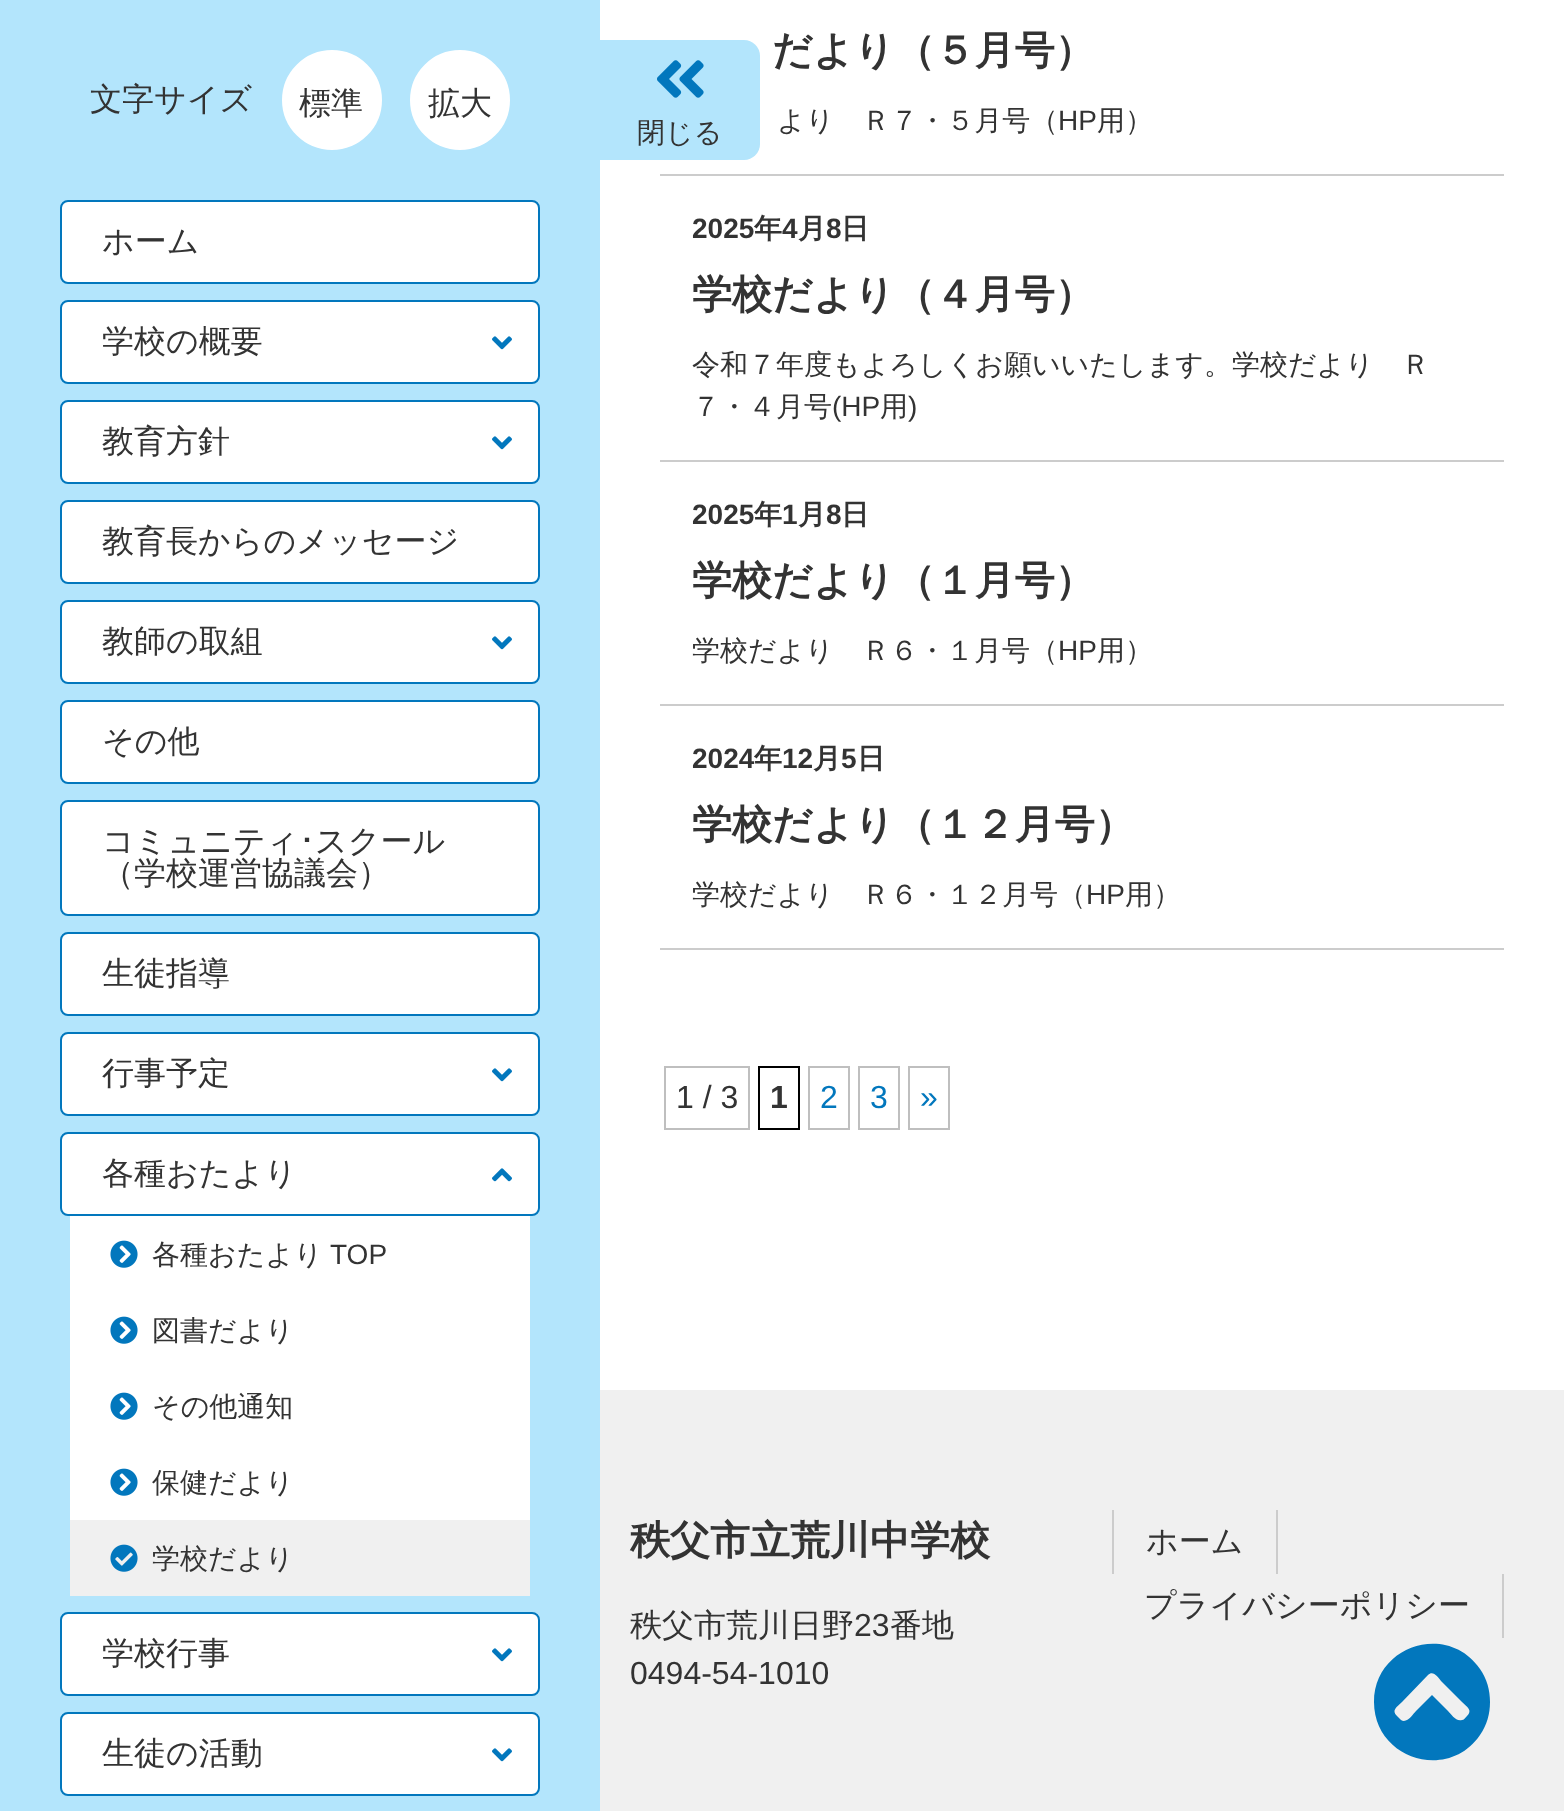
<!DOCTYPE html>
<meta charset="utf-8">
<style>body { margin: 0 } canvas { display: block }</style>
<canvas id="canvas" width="1564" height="1811"></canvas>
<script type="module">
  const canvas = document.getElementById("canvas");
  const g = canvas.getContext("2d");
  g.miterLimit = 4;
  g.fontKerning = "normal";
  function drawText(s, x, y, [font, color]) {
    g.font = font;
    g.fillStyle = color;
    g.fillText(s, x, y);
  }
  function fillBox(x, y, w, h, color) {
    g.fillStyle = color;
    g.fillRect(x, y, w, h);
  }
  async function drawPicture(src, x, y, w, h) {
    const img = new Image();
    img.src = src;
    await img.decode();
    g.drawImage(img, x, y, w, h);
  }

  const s1 = ["500 32px WenQuanYi Zen Hei", "#333333"];
  const s2 = ["32px IPAPGothic", "#333333"];
  const s3 = ["500 28px WenQuanYi Zen Hei", "#333333"];
  const s4 = ["28px Liberation Sans", "#333333"];
  const s5 = ["bold 40px WenQuanYi Zen Hei", "#333333"];
  const s6 = ["bold 28px Liberation Sans", "#333333"];
  const s7 = ["bold 28px WenQuanYi Zen Hei", "#333333"];
  const s8 = ["32px Liberation Sans", "#333333"];
  const s9 = ["bold 32px Liberation Sans", "#333333"];
  const s10 = ["32px Liberation Sans", "#0277BD"];

  fillBox(0, 0, 1564, 1811, "#FFFFFF");
  fillBox(0, 0, 600, 1811, "#B3E5FC");
  drawText("文字サイズ", 90, 110, s1);
  g.fillStyle = "#FFFFFF";
  g.beginPath();
  g.arc(332, 100, 48, 0, Math.PI * 2);
  g.fill();
  g.strokeStyle = "#FFFFFF";
  g.lineWidth = 4;
  g.stroke();
  drawText("標準", 299, 114, s1);
  g.fillStyle = "#FFFFFF";
  g.beginPath();
  g.arc(460, 100, 48, 0, Math.PI * 2);
  g.fill();
  g.stroke();
  drawText("拡大", 428, 114, s1);
  g.fillStyle = "#FFFFFF";
  g.beginPath();
  g.roundRect(61, 201, 478, 82, 7);
  g.fill();
  g.strokeStyle = "#0277BD";
  g.lineWidth = 2;
  g.stroke();
  drawText("ホーム", 102, 252, s1);
  g.fillStyle = "#FFFFFF";
  g.beginPath();
  g.roundRect(61, 301, 478, 82, 7);
  g.fill();
  g.stroke();
  drawText("学校の概要", 102, 352, s1);
  await drawPicture("pic1.png", 492, 336, 20, 14);
  g.fillStyle = "#FFFFFF";
  g.beginPath();
  g.roundRect(61, 401, 478, 82, 7);
  g.fill();
  g.stroke();
  drawText("教育方針", 102, 452, s1);
  await drawPicture("pic1.png", 492, 436, 20, 14);
  g.fillStyle = "#FFFFFF";
  g.beginPath();
  g.roundRect(61, 501, 478, 82, 7);
  g.fill();
  g.stroke();
  drawText("教育長からのメッセージ", 102, 552, s1);
  g.fillStyle = "#FFFFFF";
  g.beginPath();
  g.roundRect(61, 601, 478, 82, 7);
  g.fill();
  g.stroke();
  drawText("教師の取組", 102, 652, s1);
  await drawPicture("pic1.png", 492, 636, 20, 14);
  g.fillStyle = "#FFFFFF";
  g.beginPath();
  g.roundRect(61, 701, 478, 82, 7);
  g.fill();
  g.stroke();
  drawText("その他", 102, 752, s1);
  g.fillStyle = "#FFFFFF";
  g.beginPath();
  g.roundRect(61, 801, 478, 114, 7);
  g.fill();
  g.stroke();
  drawText("コミュニティ", 102, 852, s1);
  drawText("･", 299, 852, s2);
  drawText("スクール", 315, 852, s1);
  drawText("（学校運営協議会）", 102, 884, s1);
  g.fillStyle = "#FFFFFF";
  g.beginPath();
  g.roundRect(61, 933, 478, 82, 7);
  g.fill();
  g.stroke();
  drawText("生徒指導", 102, 984, s1);
  g.fillStyle = "#FFFFFF";
  g.beginPath();
  g.roundRect(61, 1033, 478, 82, 7);
  g.fill();
  g.stroke();
  drawText("行事予定", 102, 1084, s1);
  await drawPicture("pic1.png", 492, 1068, 20, 14);
  g.fillStyle = "#FFFFFF";
  g.beginPath();
  g.roundRect(61, 1133, 478, 82, 7);
  g.fill();
  g.stroke();
  drawText("各種おたより", 102, 1184, s1);
  await drawPicture("pic2.png", 492, 1168, 20, 14);
  fillBox(70, 1216, 460, 304, "#FFFFFF");
  await drawPicture("pic3.png", 110, 1240, 28, 28);
  drawText("各種おたより", 152, 1264, s3);
  drawText("TOP", 330, 1264, s4);
  await drawPicture("pic3.png", 110, 1316, 28, 28);
  drawText("図書だより", 152, 1340, s3);
  await drawPicture("pic3.png", 110, 1392, 28, 28);
  drawText("その他通知", 152, 1416, s3);
  await drawPicture("pic3.png", 110, 1468, 28, 28);
  drawText("保健だより", 152, 1492, s3);
  fillBox(70, 1520, 460, 76, "#F0F0F0");
  await drawPicture("pic4.png", 110, 1544, 28, 28);
  drawText("学校だより", 152, 1568, s3);
  g.fillStyle = "#FFFFFF";
  g.beginPath();
  g.roundRect(61, 1613, 478, 82, 7);
  g.fill();
  g.stroke();
  drawText("学校行事", 102, 1664, s1);
  await drawPicture("pic1.png", 492, 1648, 20, 14);
  g.fillStyle = "#FFFFFF";
  g.beginPath();
  g.roundRect(61, 1713, 478, 82, 7);
  g.fill();
  g.stroke();
  drawText("生徒の活動", 102, 1764, s1);
  await drawPicture("pic1.png", 492, 1748, 20, 14);
  g.fillStyle = "#B3E5FC";
  g.beginPath();
  g.roundRect(600, 40, 160, 120, [0, 16, 16, 0]);
  g.fill();
  await drawPicture("pic5.png", 657, 60, 47, 38);
  drawText("閉じる", 637, 142, s3);
  fillBox(660, 174, 844, 2, "#CCCCCC");
  drawText("だより（５月号）", 772, 64, s5);
  drawText("より　Ｒ７・５月号（", 777, 130, s3);
  drawText("HP", 1058, 130, s4);
  drawText("用）", 1097, 130, s3);
  fillBox(660, 460, 844, 2, "#CCCCCC");
  drawText("2025", 692, 238, s6);
  drawText("年", 754, 238, s7);
  drawText("4", 782, 238, s6);
  drawText("月", 798, 238, s7);
  drawText("8", 826, 238, s6);
  drawText("日", 841, 238, s7);
  drawText("学校だより（４月号）", 692, 308, s5);
  drawText("令和７年度もよろしくお願いいたします。学校だより　Ｒ", 692, 374, s3);
  drawText("７・４月号", 692, 416, s3);
  drawText("(HP", 832, 416, s4);
  drawText("用", 880, 416, s3);
  drawText(")", 908, 416, s4);
  fillBox(660, 704, 844, 2, "#CCCCCC");
  drawText("2025", 692, 524, s6);
  drawText("年", 754, 524, s7);
  drawText("1", 782, 524, s6);
  drawText("月", 798, 524, s7);
  drawText("8", 826, 524, s6);
  drawText("日", 841, 524, s7);
  drawText("学校だより（１月号）", 692, 594, s5);
  drawText("学校だより　Ｒ６・１月号（", 692, 660, s3);
  drawText("HP", 1058, 660, s4);
  drawText("用）", 1097, 660, s3);
  fillBox(660, 948, 844, 2, "#CCCCCC");
  drawText("2024", 692, 768, s6);
  drawText("年", 754, 768, s7);
  drawText("12", 782, 768, s6);
  drawText("月", 813, 768, s7);
  drawText("5", 841, 768, s6);
  drawText("日", 857, 768, s7);
  drawText("学校だより（１２月号）", 692, 838, s5);
  drawText("学校だより　Ｒ６・１２月号（", 692, 904, s3);
  drawText("HP", 1086, 904, s4);
  drawText("用）", 1125, 904, s3);
  g.strokeStyle = "#BFBFBF";
  g.strokeRect(665, 1067, 84, 62);
  drawText("1 / 3", 676, 1108, s8);
  g.strokeStyle = "#000000";
  g.strokeRect(759, 1067, 40, 62);
  drawText("1", 770, 1108, s9);
  g.strokeStyle = "#BFBFBF";
  g.strokeRect(809, 1067, 40, 62);
  drawText("2", 820, 1108, s10);
  g.strokeRect(859, 1067, 40, 62);
  drawText("3", 870, 1108, s10);
  g.strokeRect(909, 1067, 40, 62);
  drawText("»", 920, 1108, s10);
  fillBox(600, 1390, 964, 421, "#F0F0F0");
  drawText("秩父市立荒川中学校", 630, 1554, s5);
  drawText("秩父市荒川日野", 630, 1636, s1);
  drawText("23", 854, 1636, s8);
  drawText("番地", 890, 1636, s1);
  drawText("0494-54-1010", 630, 1684, s8);
  fillBox(1276, 1510, 2, 64, "#CCCCCC");
  fillBox(1112, 1510, 2, 64, "#CCCCCC");
  drawText("ホーム", 1146, 1552, s1);
  fillBox(1502, 1574, 2, 64, "#CCCCCC");
  drawText("プライバシーポリシー", 1144, 1616, s1);
  g.fillStyle = "#0277BD";
  g.beginPath();
  g.moveTo(1374, 1702);
  g.bezierCurveTo(1374, 1645, 1448, 1622, 1480, 1669);
  g.bezierCurveTo(1487, 1679, 1490, 1690, 1490, 1702);
  g.bezierCurveTo(1490, 1714, 1487, 1725, 1480, 1735);
  g.bezierCurveTo(1448, 1782, 1374, 1759, 1374, 1702);
  g.closePath();
  g.moveTo(1428, 1675);
  g.lineTo(1402, 1702);
  g.bezierCurveTo(1397, 1707, 1391, 1710, 1397, 1716);
  g.lineTo(1401, 1720);
  g.bezierCurveTo(1407, 1724, 1413, 1714, 1416, 1711);
  g.lineTo(1432, 1695);
  g.lineTo(1448, 1711);
  g.bezierCurveTo(1451, 1714, 1456, 1722, 1462, 1720);
  g.bezierCurveTo(1464, 1720, 1465, 1718, 1467, 1716);
  g.bezierCurveTo(1473, 1710, 1467, 1707, 1462, 1702);
  g.lineTo(1441, 1681);
  g.bezierCurveTo(1438, 1677, 1433, 1670, 1428, 1675);
  g.closePath();
  g.fill();
</script>
